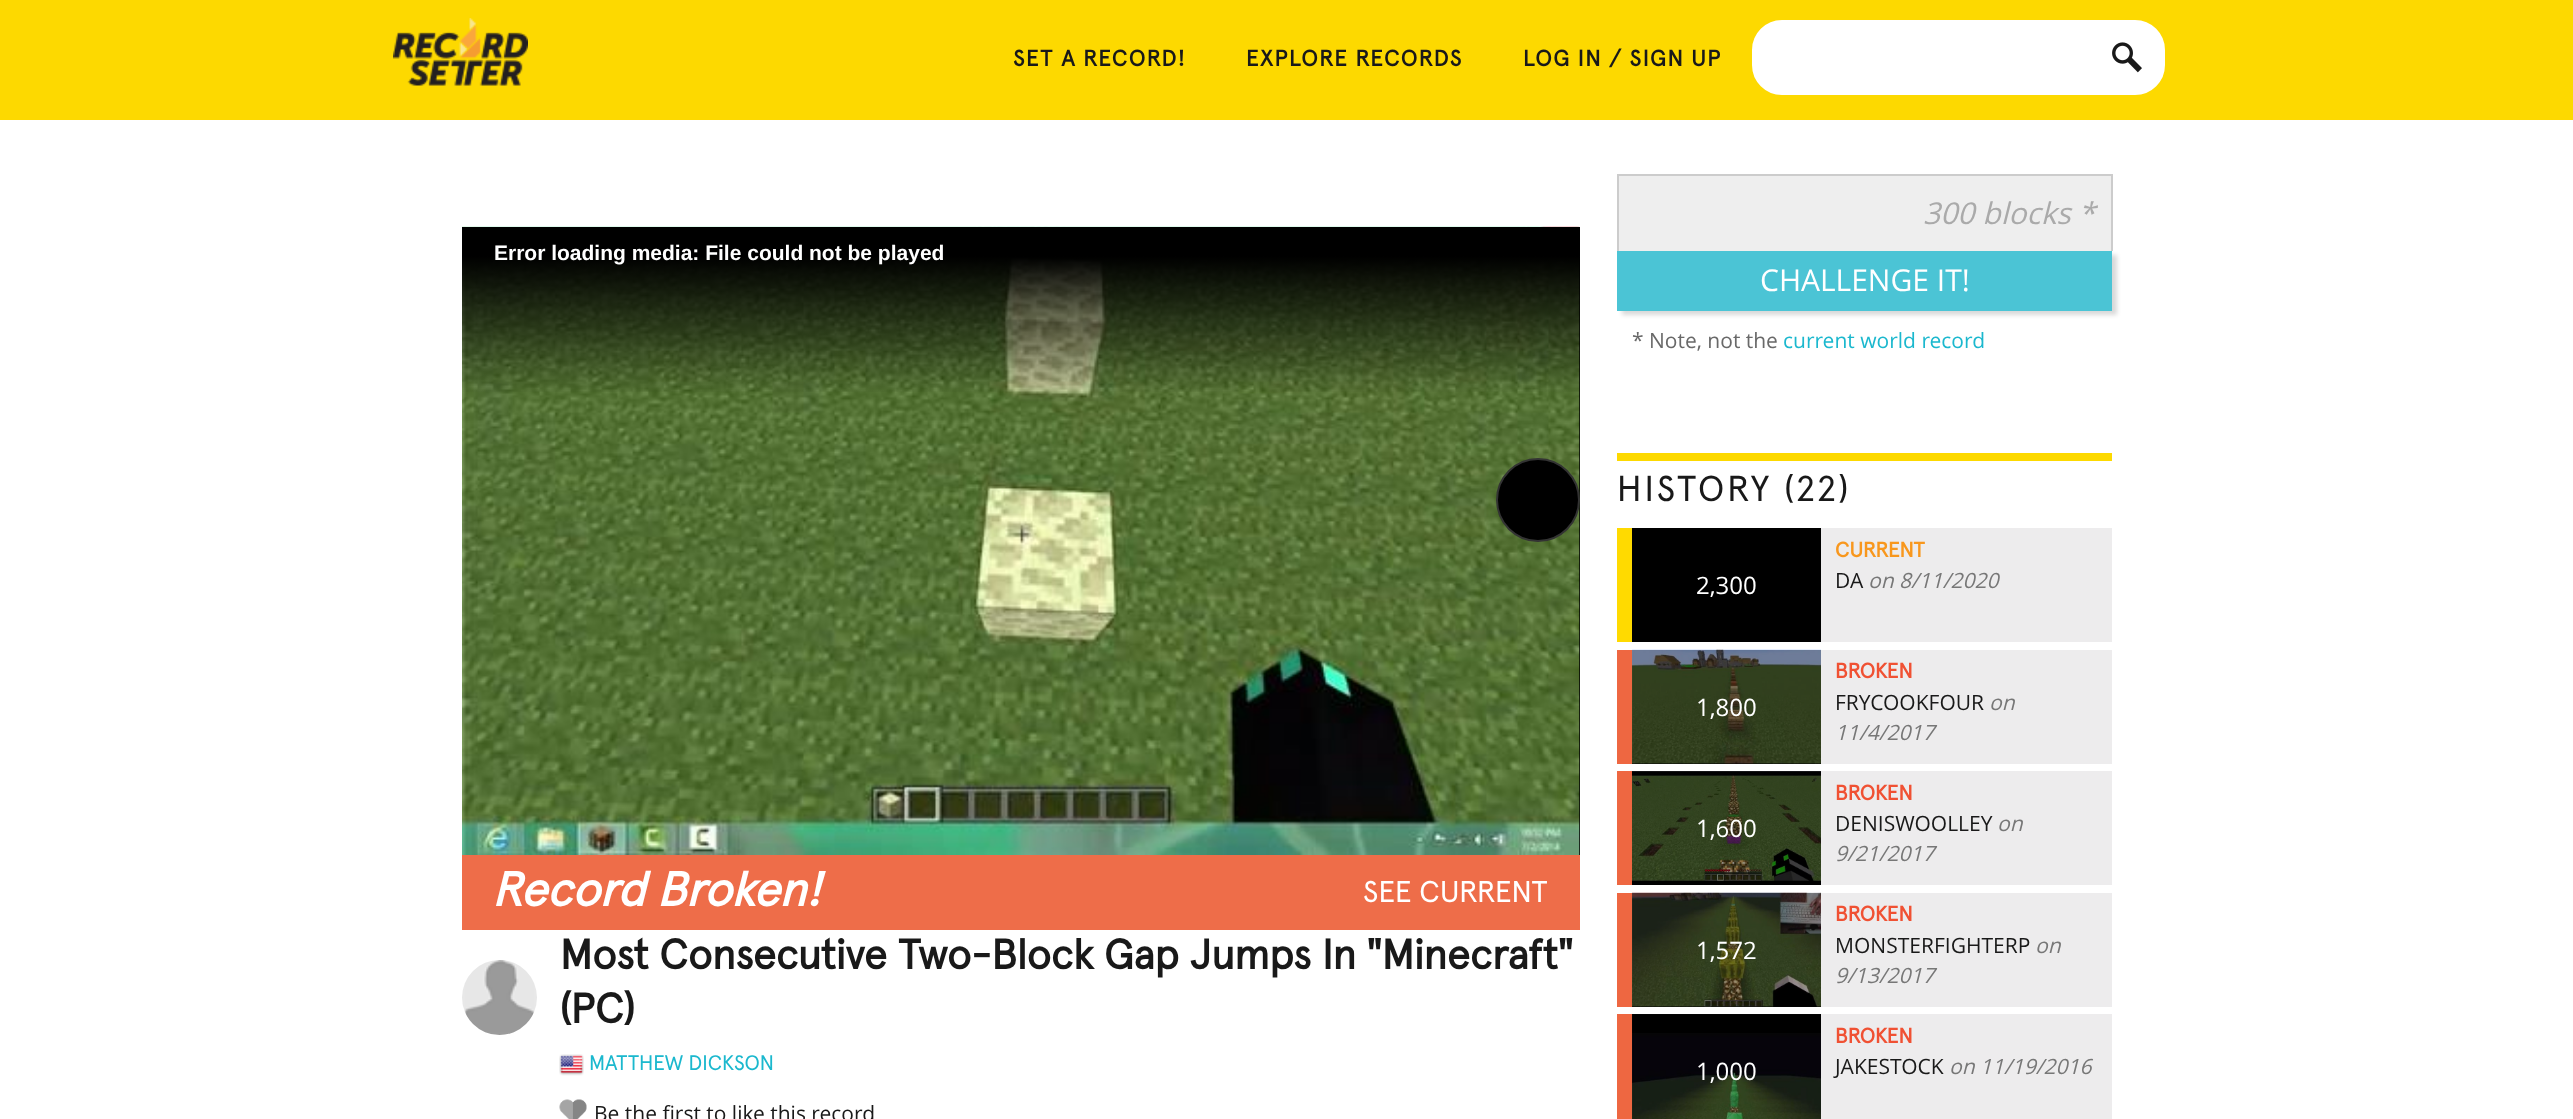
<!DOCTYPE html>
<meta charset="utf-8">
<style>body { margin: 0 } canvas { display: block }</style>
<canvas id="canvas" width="2573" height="1119"></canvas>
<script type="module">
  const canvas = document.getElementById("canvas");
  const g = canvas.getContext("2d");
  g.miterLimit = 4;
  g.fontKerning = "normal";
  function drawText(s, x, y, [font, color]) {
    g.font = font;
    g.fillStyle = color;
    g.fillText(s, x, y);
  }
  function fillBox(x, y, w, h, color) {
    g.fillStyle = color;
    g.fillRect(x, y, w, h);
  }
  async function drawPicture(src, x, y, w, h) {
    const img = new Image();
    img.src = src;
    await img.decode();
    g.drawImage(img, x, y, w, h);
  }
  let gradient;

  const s1 = ["bold 22.5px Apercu", "#191919"];
  const s2 = ["bold 21px Liberation Sans", "#FFFFFF"];
  const s3 = ["italic bold 48px Apercu", "#FFFFFF"];
  const s4 = ["30px Apercu", "#FFFFFF"];
  const s5 = ["bold 42px Apercu", "#191919"];
  const s6 = ["21px Apercu", "#1BB8CE"];
  const s7 = ["21px Open Sans", "#191919"];
  const s8 = ["italic 30px Open Sans", "#AAAAAA"];
  const s9 = ["30px Open Sans", "#FFFFFF"];
  const s10 = ["21px Open Sans", "#696969"];
  const s11 = ["21px Open Sans", "#1BB8CE"];
  const s12 = ["36px Apercu", "#191919"];
  const s13 = ["bold 21px Apercu", "#F8971D"];
  const s14 = ["24px Open Sans", "#FFFFFF"];
  const s15 = ["italic 21px Open Sans", "#777777"];
  const s16 = ["bold 21px Apercu", "#F05133"];

  fillBox(0, 0, 2573, 1119, "#FFFFFF");
  fillBox(0, 0, 2573, 120, "#FDD900");
  await drawPicture("pic1.png", 393, 18, 135, 68);
  g.letterSpacing = "1.5px";
  drawText("SET A RECORD!", 1013, 66, s1);
  drawText("EXPLORE RECORDS", 1246, 66, s1);
  drawText("LOG IN / SIGN UP", 1523, 66, s1);
  g.fillStyle = "#FFFFFF";
  g.beginPath();
  g.roundRect(1753.5, 21.5, 410, 72, 28.5);
  g.fill();
  g.strokeStyle = "#FFFFFF";
  g.lineWidth = 3;
  g.stroke();
  await drawPicture("pic2.png", 2112, 42, 30, 31);
  fillBox(1579, 257, 1, 598, "#000000");
  await drawPicture("pic3.png", 462, 226, 1118, 629);
  gradient = g.createLinearGradient(1021, 226, 1021, 395);
  gradient.addColorStop(0, "#000000");
  gradient.addColorStop(0.18, "#000000");
  gradient.addColorStop(1, "rgba(0, 0, 0, 0)");
  g.fillStyle = gradient;
  g.fillRect(462, 227, 1118, 165);
  g.letterSpacing = "0px";
  drawText("Error loading media: File could not be played", 494, 260, s2);
  g.fillStyle = "#000000";
  g.beginPath();
  g.arc(1538, 500, 41, 0, Math.PI * 2);
  g.fill();
  g.strokeStyle = "#333333";
  g.lineWidth = 2;
  g.stroke();
  fillBox(462, 855, 1118, 75, "#EE6D49");
  drawText("Record Broken!", 492, 906, s3);
  drawText("SEE CURRENT", 1363, 902, s4);
  await drawPicture("pic4.png", 462, 960, 75, 75);
  drawText("Most Consecutive Two-Block Gap Jumps In \"Minecraft\"", 560, 969, s5);
  drawText("(PC)", 560, 1023, s5);
  await drawPicture("pic5.png", 559, 1054, 25, 22);
  drawText("MATTHEW DICKSON", 589, 1070, s6);
  await drawPicture("pic6.png", 559, 1099, 28, 20);
  drawText("Be the first to like this record", 594, 1121, s7);
  fillBox(1619, 176, 492, 75, "#EEEEEE");
  fillBox(1617, 174, 495, 2, "#CCCCCC");
  fillBox(2111, 174, 2, 77, "#CCCCCC");
  fillBox(1617, 174, 2, 77, "#CCCCCC");
  drawText("300 blocks *", 1923, 224, s8);
  g.fillStyle = "rgba(0, 0, 0, 0.15)";
  g.filter = "blur(2px)";
  g.beginPath();
  g.rect(1622, 255, 495, 60);
  g.fill();
  g.filter = "none";
  fillBox(1617, 251, 495, 60, "#4BC4D5");
  drawText("CHALLENGE IT!", 1760, 291, s9);
  drawText("* Note, not the", 1632, 348, s10);
  drawText("current world record", 1783, 348, s11);
  fillBox(1617, 453, 495, 8, "#FDD900");
  g.letterSpacing = "3px";
  drawText("HISTORY (22)", 1617, 501, s12);
  fillBox(1821, 528, 291, 114, "#EDECED");
  fillBox(1617, 528, 15, 114, "#FFDA00");
  g.letterSpacing = "0px";
  drawText("CURRENT", 1835, 557, s13);
  fillBox(1632, 528, 189, 114, "#000000");
  drawText("2,300", 1696, 594, s14);
  drawText("DA", 1835, 588, s7);
  drawText("on 8/11/2020", 1868, 588, s15);
  fillBox(1821, 650, 291, 114, "#EDECED");
  fillBox(1617, 650, 15, 114, "#EE6741");
  drawText("BROKEN", 1835, 678, s16);
  fillBox(1632, 650, 189, 114, "#000000");
  await drawPicture("pic7.png", 1632, 649, 189, 115);
  drawText("1,800", 1696, 716, s14);
  drawText("FRYCOOKFOUR", 1835, 710, s7);
  drawText("on", 1989, 710, s15);
  drawText("11/4/2017", 1835, 740, s15);
  fillBox(1821, 771, 291, 114, "#EDECED");
  fillBox(1617, 771, 15, 114, "#EE6741");
  drawText("BROKEN", 1835, 800, s16);
  fillBox(1632, 771, 189, 114, "#000000");
  await drawPicture("pic8.png", 1632, 771, 189, 110);
  drawText("1,600", 1696, 837, s14);
  drawText("DENISWOOLLEY", 1835, 831, s7);
  drawText("on", 1997, 831, s15);
  drawText("9/21/2017", 1835, 861, s15);
  fillBox(1821, 893, 291, 114, "#EDECED");
  fillBox(1617, 893, 15, 114, "#EE6741");
  drawText("BROKEN", 1835, 921, s16);
  fillBox(1632, 893, 189, 114, "#000000");
  await drawPicture("pic9.png", 1632, 892, 189, 115);
  drawText("1,572", 1696, 959, s14);
  drawText("MONSTERFIGHTERP", 1835, 953, s7);
  drawText("on", 2035, 953, s15);
  drawText("9/13/2017", 1835, 983, s15);
  fillBox(1821, 1014, 291, 105, "#EDECED");
  fillBox(1617, 1014, 15, 105, "#EE6741");
  drawText("BROKEN", 1835, 1043, s16);
  fillBox(1632, 1014, 189, 105, "#000000");
  await drawPicture("pic10.png", 1632, 1014, 189, 105);
  drawText("1,000", 1696, 1080, s14);
  drawText("JAKESTOCK", 1835, 1074, s7);
  drawText("on 11/19/2016", 1949, 1074, s15);
</script>
